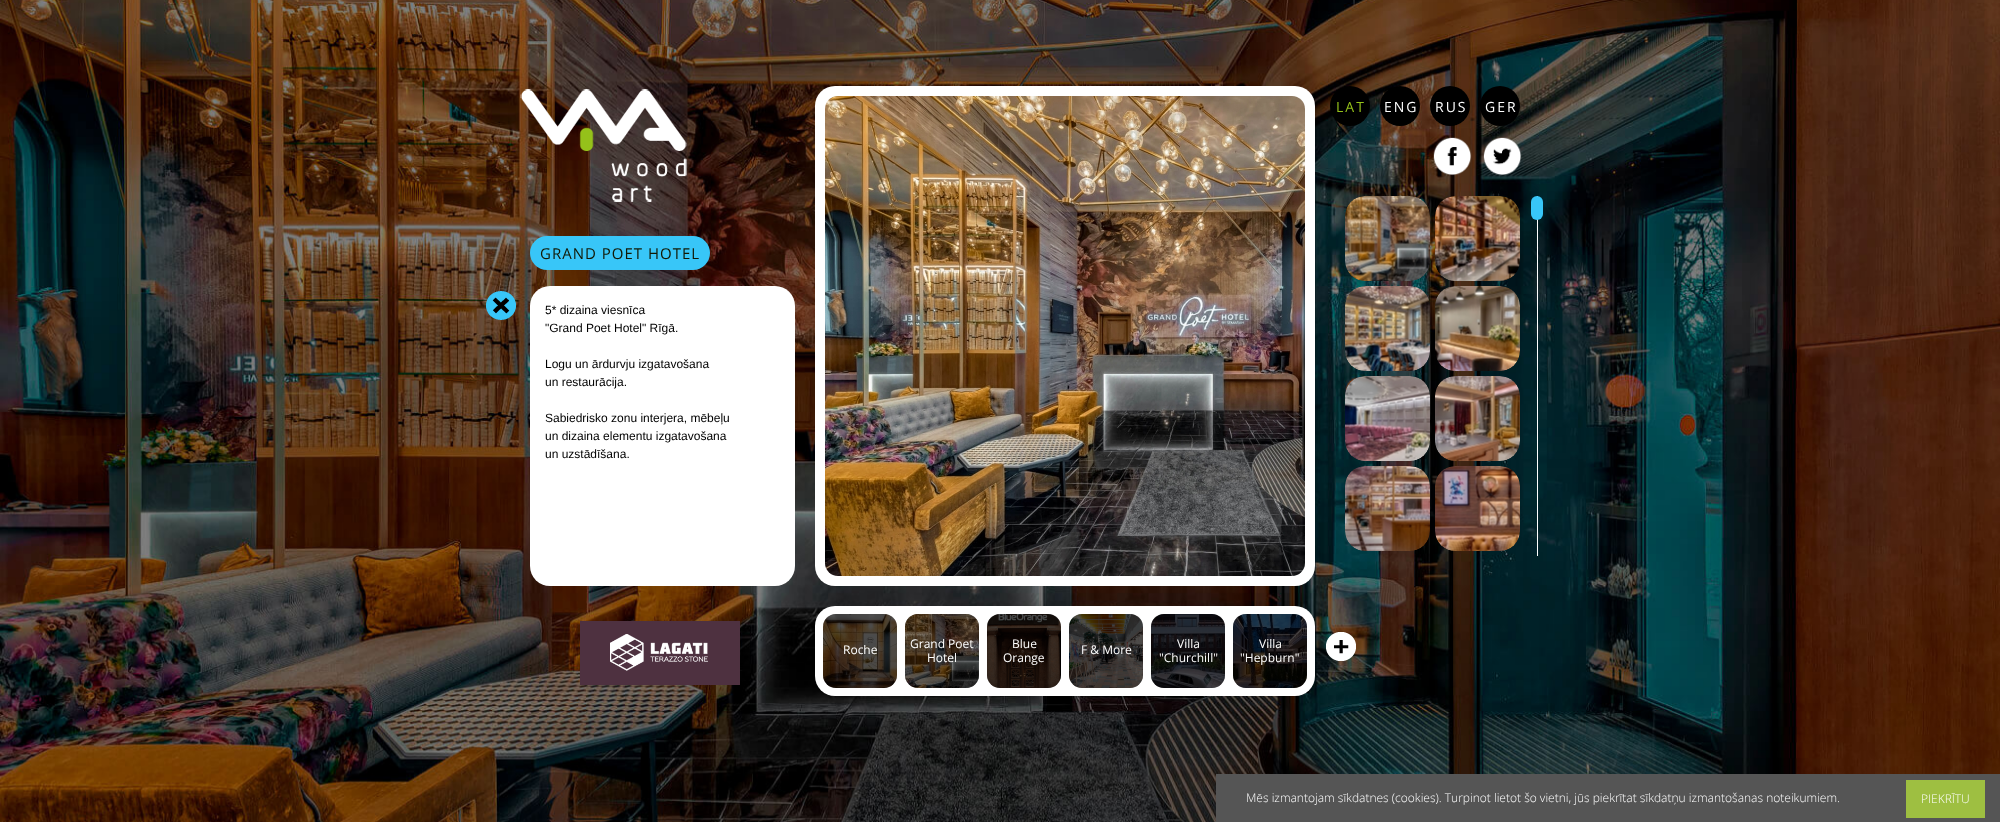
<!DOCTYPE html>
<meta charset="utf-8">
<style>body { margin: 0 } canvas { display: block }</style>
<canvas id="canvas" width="2000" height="822"></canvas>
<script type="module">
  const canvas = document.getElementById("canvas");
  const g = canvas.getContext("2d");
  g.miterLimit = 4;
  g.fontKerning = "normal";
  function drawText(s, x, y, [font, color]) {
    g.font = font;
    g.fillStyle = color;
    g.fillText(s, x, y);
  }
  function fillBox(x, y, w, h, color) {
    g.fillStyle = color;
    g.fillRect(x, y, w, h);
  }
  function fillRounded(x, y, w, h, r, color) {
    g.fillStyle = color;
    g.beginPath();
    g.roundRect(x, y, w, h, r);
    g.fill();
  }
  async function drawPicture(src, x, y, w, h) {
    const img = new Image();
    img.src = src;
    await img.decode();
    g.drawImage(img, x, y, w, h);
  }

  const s1 = ["14px Open Sans", "#95C11A"];
  const s2 = ["14px Open Sans", "#FFFFFF"];
  const s3 = ["15px Open Sans", "#131803"];
  const s4 = ["12px Liberation Sans", "#000000"];
  const s5 = ["12px Open Sans", "#FFFFFF"];
  const s6 = ["300 12px Open Sans", "#FFFFFF"];

  fillBox(0, 0, 2000, 822, "#FFFFFF");
  await drawPicture("pic1.png", 0, 0, 2000, 822);
  await drawPicture("pic2.png", 520, 89, 167, 113);
  g.fillStyle = "#000000";
  g.beginPath();
  g.arc(1350, 106, 20, 0, Math.PI * 2);
  g.fill();
  g.letterSpacing = "2px";
  drawText("LAT", 1336, 112, s1);
  g.fillStyle = "#000000";
  g.beginPath();
  g.arc(1400, 106, 20, 0, Math.PI * 2);
  g.fill();
  drawText("ENG", 1384, 112, s2);
  g.fillStyle = "#000000";
  g.beginPath();
  g.arc(1450, 106, 20, 0, Math.PI * 2);
  g.fill();
  drawText("RUS", 1435, 112, s2);
  g.fillStyle = "#000000";
  g.beginPath();
  g.arc(1500, 106, 20, 0, Math.PI * 2);
  g.fill();
  drawText("GER", 1485, 112, s2);
  await drawPicture("pic3.png", 1433, 137, 39, 39);
  await drawPicture("pic4.png", 1483, 137, 39, 39);
  fillRounded(530, 236, 180, 34, 17, "#38C6F8");
  g.letterSpacing = "1px";
  drawText("GRAND POET HOTEL", 540, 259, s3);
  fillRounded(815, 86, 500, 500, 20, "#FFFFFF");
  await drawPicture("pic5.png", 825, 96, 480, 480);
  await drawPicture("pic6.png", 1345, 196, 85, 85);
  await drawPicture("pic7.png", 1435, 196, 85, 85);
  await drawPicture("pic8.png", 1345, 286, 85, 85);
  await drawPicture("pic9.png", 1435, 286, 85, 85);
  await drawPicture("pic10.png", 1345, 376, 85, 85);
  await drawPicture("pic11.png", 1435, 376, 85, 85);
  await drawPicture("pic12.png", 1345, 466, 85, 85);
  await drawPicture("pic13.png", 1435, 466, 85, 85);
  fillBox(1537, 196, 1, 360, "#FFFFFF");
  fillRounded(1531, 196, 12, 24, 6, "#38C6F8");
  await drawPicture("pic14.png", 486, 291, 30, 29);
  fillRounded(530, 286, 265, 300, 20, "#FFFFFF");
  g.letterSpacing = "0px";
  drawText("5* dizaina viesnīca", 545, 314, s4);
  drawText("\"Grand Poet Hotel\" Rīgā.", 545, 332, s4);
  drawText("Logu un ārdurvju izgatavošana", 545, 368, s4);
  drawText("un restaurācija.", 545, 386, s4);
  drawText("Sabiedrisko zonu interjera, mēbeļu", 545, 422, s4);
  drawText("un dizaina elementu izgatavošana", 545, 440, s4);
  drawText("un uzstādīšana.", 545, 458, s4);
  fillRounded(815, 606, 500, 90, 20, "#FFFFFF");
  fillRounded(823, 614, 74, 74, 13, "#000000");
  await drawPicture("pic15.png", 823, 614, 74, 74);
  drawText("Roche", 843, 654, s5);
  fillRounded(905, 614, 74, 74, 13, "#000000");
  await drawPicture("pic16.png", 905, 614, 74, 74);
  drawText("Grand Poet", 910, 648, s5);
  drawText("Hotel", 927, 662, s5);
  fillRounded(987, 614, 74, 74, 13, "#000000");
  await drawPicture("pic17.png", 987, 614, 74, 74);
  drawText("Blue", 1012, 648, s5);
  drawText("Orange", 1003, 662, s5);
  fillRounded(1069, 614, 74, 74, 13, "#000000");
  await drawPicture("pic18.png", 1069, 614, 74, 74);
  drawText("F & More", 1081, 654, s5);
  fillRounded(1151, 614, 74, 74, 13, "#000000");
  await drawPicture("pic19.png", 1151, 614, 74, 74);
  drawText("Villa", 1177, 648, s5);
  drawText("\"Churchill\"", 1159, 662, s5);
  fillRounded(1233, 614, 74, 74, 13, "#000000");
  await drawPicture("pic20.png", 1233, 614, 74, 74);
  drawText("Villa", 1259, 648, s5);
  drawText("\"Hepburn\"", 1240, 662, s5);
  await drawPicture("pic21.png", 1326, 632, 30, 29);
  await drawPicture("pic22.png", 580, 621, 160, 64);
  fillBox(1216, 774, 784, 48, "#555555");
  drawText("Mēs izmantojam sīkdatnes (cookies). Turpinot lietot šo vietni, jūs piekrītat sīkdatņu izmantošanas noteikumiem.", 1246, 802, s6);
  fillBox(1906, 780, 79, 38, "#9EBF41");
  drawText("PIEKRĪTU", 1921, 803, s6);
</script>
